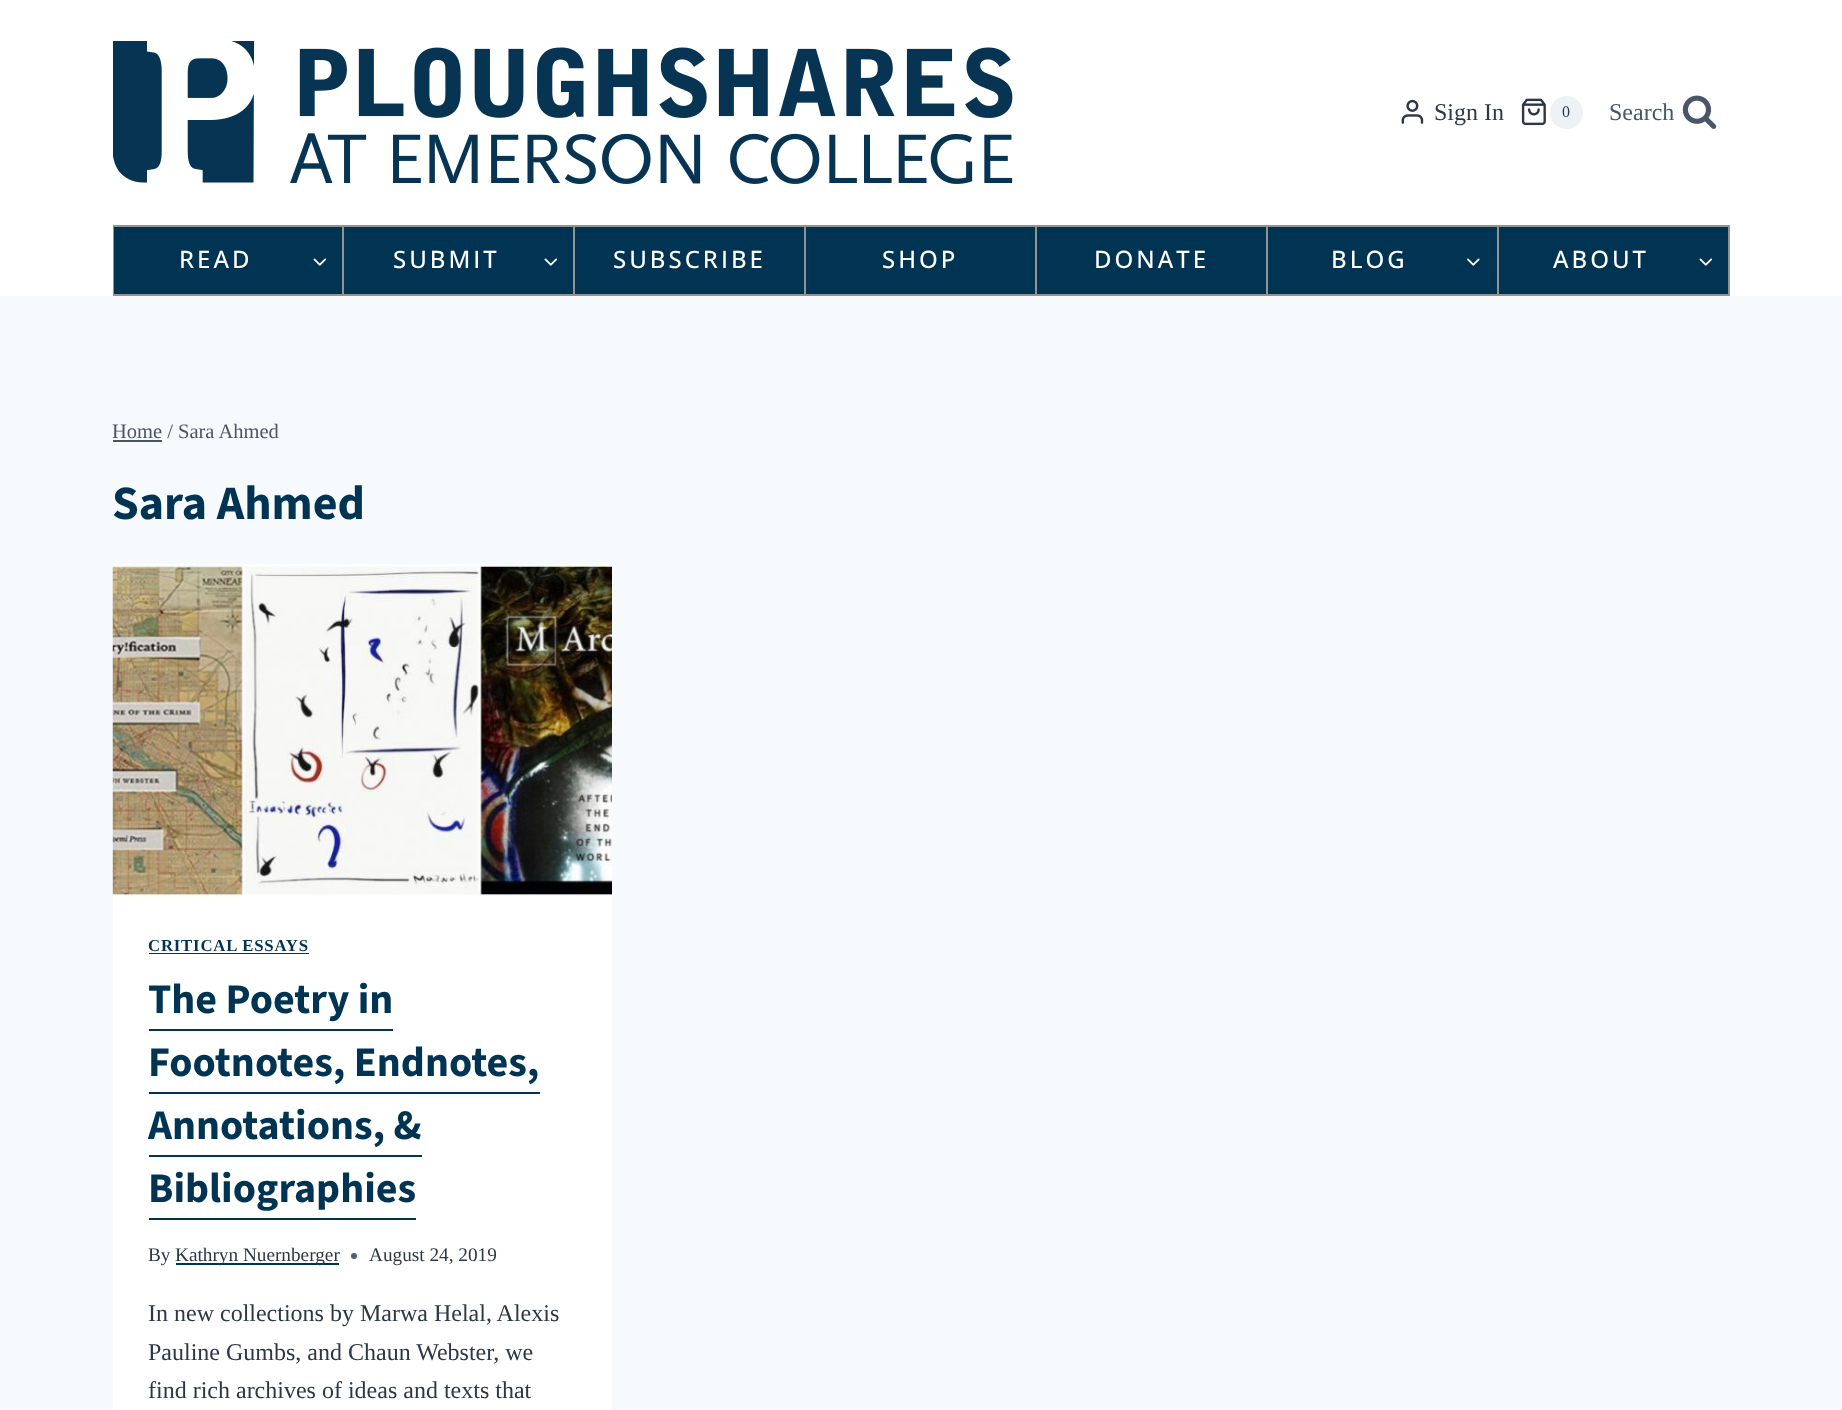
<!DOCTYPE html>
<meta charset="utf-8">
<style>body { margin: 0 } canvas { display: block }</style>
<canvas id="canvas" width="1842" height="1410"></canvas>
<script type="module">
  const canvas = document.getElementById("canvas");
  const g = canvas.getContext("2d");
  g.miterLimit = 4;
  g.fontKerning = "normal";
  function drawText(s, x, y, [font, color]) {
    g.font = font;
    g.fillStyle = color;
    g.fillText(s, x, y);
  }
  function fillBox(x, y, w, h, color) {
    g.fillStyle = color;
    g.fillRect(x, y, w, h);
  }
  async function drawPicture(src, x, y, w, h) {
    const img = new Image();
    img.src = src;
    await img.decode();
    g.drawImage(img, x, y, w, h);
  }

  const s1 = ["24px Liberation Serif", "#2D3748"];
  const s2 = ["16px Liberation Serif", "#2D3748"];
  const s3 = ["24px Liberation Serif", "#4A5568"];
  const s4 = ["500 24px Open Sans", "#FFFFFF"];
  const s5 = ["20.5px Liberation Serif", "#4A5568"];
  const s6 = ["200 48px 'Source Sans 3'", "#003452"];
  const s7 = ["bold 16.75px Liberation Serif", "#003452"];
  const s8 = ["200 42px 'Source Sans 3'", "#003452"];
  const s9 = ["19.25px Liberation Serif", "#2D3748"];

  fillBox(0, 0, 1842, 1410, "#F7FAFC");
  fillBox(0, 0, 1842, 296, "#FFFFFF");
  await drawPicture("pic1.png", 113, 41, 900, 143);
  await drawPicture("pic2.png", 1401, 99, 23, 25);
  drawText("Sign In", 1434, 120, s1);
  await drawPicture("pic3.png", 1521, 98, 25, 28);
  g.fillStyle = "#EDF2F7";
  g.beginPath();
  g.arc(1566.5, 112.5, 16.5, 0, Math.PI * 2);
  g.fill();
  drawText("0", 1562, 117, s2);
  drawText("Search", 1609, 120, s3);
  await drawPicture("pic4.png", 1682, 95, 35, 34);
  g.strokeStyle = "#939393";
  g.lineWidth = 2;
  g.strokeRect(114, 226, 1615, 69);
  fillBox(342, 227, 2, 67, "#939393");
  fillBox(114, 227, 228, 67, "#003452");
  g.letterSpacing = "3px";
  drawText("READ", 179, 268, s4);
  await drawPicture("pic5.png", 313, 258, 13, 8);
  fillBox(573, 227, 2, 67, "#939393");
  fillBox(344, 227, 229, 67, "#003452");
  drawText("SUBMIT", 393, 268, s4);
  await drawPicture("pic5.png", 544, 258, 13, 8);
  fillBox(804, 227, 2, 67, "#939393");
  fillBox(575, 227, 229, 67, "#003452");
  drawText("SUBSCRIBE", 613, 268, s4);
  fillBox(1035, 227, 2, 67, "#939393");
  fillBox(806, 227, 229, 67, "#003452");
  drawText("SHOP", 882, 268, s4);
  fillBox(1266, 227, 2, 67, "#939393");
  fillBox(1037, 227, 229, 67, "#003452");
  drawText("DONATE", 1094, 268, s4);
  fillBox(1497, 227, 2, 67, "#939393");
  fillBox(1268, 227, 229, 67, "#003452");
  drawText("BLOG", 1331, 268, s4);
  await drawPicture("pic6.png", 1467, 258, 13, 8);
  fillBox(1499, 227, 229, 67, "#003452");
  drawText("ABOUT", 1553, 268, s4);
  await drawPicture("pic5.png", 1699, 258, 13, 8);
  g.letterSpacing = "0px";
  drawText("Home / Sara Ahmed", 112, 438, s5);
  fillBox(113, 440, 49, 2, "#4A5568");
  drawText("Sara Ahmed", 112, 519, s6);
  fillBox(113, 897, 499, 513, "#FFFFFF");
  await drawPicture("pic7.png", 112, 564, 500, 333);
  g.letterSpacing = "0.8px";
  drawText("CRITICAL ESSAYS", 148, 951, s7);
  fillBox(149, 953, 160, 1, "#003452");
  g.letterSpacing = "0px";
  drawText("The Poetry in", 148, 1013, s8);
  fillBox(149, 1029, 244, 2, "#003452");
  drawText("Footnotes, Endnotes,", 148, 1076, s8);
  fillBox(149, 1092, 391, 2, "#003452");
  drawText("Annotations, &", 148, 1139, s8);
  fillBox(149, 1155, 273, 2, "#003452");
  drawText("Bibliographies", 148, 1202, s8);
  fillBox(149, 1218, 267, 2, "#003452");
  drawText("By", 148, 1261, s9);
  fillBox(176, 1263, 163, 2, "#003452");
  drawText("Kathryn Nuernberger", 175, 1261, s9);
  g.fillStyle = "#575F6D";
  g.beginPath();
  g.arc(354, 1256, 3, 0, Math.PI * 2);
  g.fill();
  drawText("August 24, 2019", 369, 1261, s9);
  drawText("In new collections by Marwa Helal, Alexis", 148, 1321, s1);
  drawText("Pauline Gumbs, and Chaun Webster, we", 148, 1360, s1);
  drawText("find rich archives of ideas and texts that", 148, 1398, s1);
</script>
